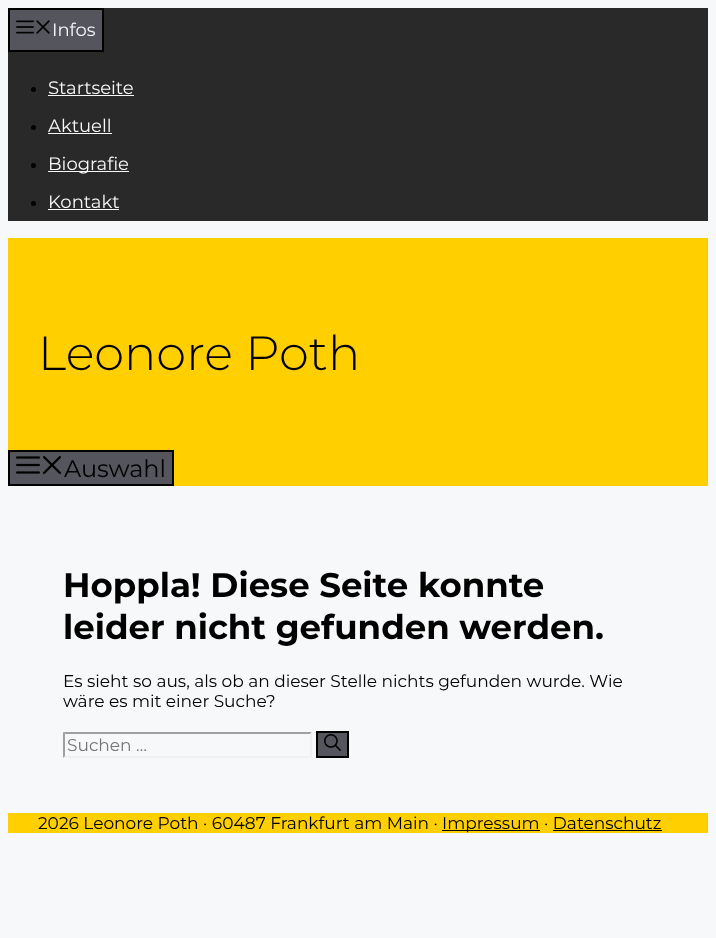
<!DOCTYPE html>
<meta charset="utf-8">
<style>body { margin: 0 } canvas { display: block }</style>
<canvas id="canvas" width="716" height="938"></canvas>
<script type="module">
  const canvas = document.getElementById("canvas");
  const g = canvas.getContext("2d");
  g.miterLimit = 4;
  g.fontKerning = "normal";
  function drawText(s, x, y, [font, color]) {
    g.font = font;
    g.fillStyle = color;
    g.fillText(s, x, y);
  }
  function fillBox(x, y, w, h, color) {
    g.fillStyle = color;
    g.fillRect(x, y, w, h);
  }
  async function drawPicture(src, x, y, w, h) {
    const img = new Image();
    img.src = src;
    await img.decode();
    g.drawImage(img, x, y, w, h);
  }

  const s1 = ["18px Montserrat", "#F7F8F9"];
  const s2 = ["300 48px Montserrat", "#000000"];
  const s3 = ["24px Montserrat", "#000000"];
  const s4 = ["bold 34px Montserrat", "#000000"];
  const s5 = ["17px Montserrat", "#000000"];
  const s6 = ["17px Montserrat", "#757575"];

  fillBox(0, 0, 716, 938, "#F7F8F9");
  fillBox(8, 8, 700, 213, "#292929");
  g.fillStyle = "#55555E";
  g.beginPath();
  g.rect(9, 9, 94, 42);
  g.fill();
  g.strokeStyle = "#000000";
  g.lineWidth = 2;
  g.stroke();
  await drawPicture("pic1.png", 16, 20, 18, 14);
  await drawPicture("pic2.png", 36, 20, 14, 14);
  drawText("Infos", 52, 36, s1);
  g.fillStyle = "#000000";
  g.beginPath();
  g.arc(33.5, 89.5, 2.5, 0, Math.PI * 2);
  g.fill();
  drawText("Startseite", 48, 94, s1);
  fillBox(48, 95, 86, 1, "#F7F8F9");
  g.fillStyle = "#000000";
  g.beginPath();
  g.arc(33.5, 127.5, 2.5, 0, Math.PI * 2);
  g.fill();
  drawText("Aktuell", 48, 132, s1);
  fillBox(48, 133, 64, 1, "#F7F8F9");
  g.fillStyle = "#000000";
  g.beginPath();
  g.arc(33.5, 165.5, 2.5, 0, Math.PI * 2);
  g.fill();
  fillBox(48, 171, 81, 1, "#F7F8F9");
  drawText("Biografie", 48, 170, s1);
  g.fillStyle = "#000000";
  g.beginPath();
  g.arc(33.5, 203.5, 2.5, 0, Math.PI * 2);
  g.fill();
  drawText("Kontakt", 48, 208, s1);
  fillBox(48, 209, 71, 1, "#F7F8F9");
  fillBox(8, 238, 700, 212, "#FFCF00");
  drawText("Leonore Poth", 38, 370, s2);
  fillBox(174, 450, 534, 36, "#FFCF00");
  g.fillStyle = "#55555E";
  g.beginPath();
  g.rect(9, 451, 164, 34);
  g.fill();
  g.stroke();
  await drawPicture("pic3.png", 16, 456, 24, 18);
  await drawPicture("pic4.png", 43, 456, 18, 18);
  drawText("Auswahl", 64, 477, s3);
  drawText("Hoppla! Diese Seite konnte", 63, 597, s4);
  drawText("leider nicht gefunden werden.", 63, 639, s4);
  drawText("Es sieht so aus, als ob an dieser Stelle nichts gefunden wurde. Wie", 63, 687, s5);
  drawText("wäre es mit einer Suche?", 63, 707, s5);
  g.fillStyle = "#A0A0A0";
  g.beginPath();
  g.moveTo(63, 732);
  g.lineTo(312, 732);
  g.lineTo(310, 734);
  g.lineTo(65, 734);
  g.closePath();
  g.fill();
  g.fillStyle = "#F0F0F0";
  g.beginPath();
  g.moveTo(312, 732);
  g.lineTo(312, 758);
  g.lineTo(310, 756);
  g.lineTo(310, 734);
  g.closePath();
  g.fill();
  g.beginPath();
  g.moveTo(312, 758);
  g.lineTo(63, 758);
  g.lineTo(65, 756);
  g.lineTo(310, 756);
  g.closePath();
  g.fill();
  g.fillStyle = "#A0A0A0";
  g.beginPath();
  g.moveTo(63, 758);
  g.lineTo(63, 732);
  g.lineTo(65, 734);
  g.lineTo(65, 756);
  g.closePath();
  g.fill();
  drawText("Suchen …", 67, 751, s6);
  g.fillStyle = "#55555E";
  g.beginPath();
  g.rect(317, 732, 31, 25);
  g.fill();
  g.stroke();
  await drawPicture("pic5.png", 324, 734, 17, 17);
  fillBox(8, 813, 700, 20, "#FFCF00");
  drawText("2026 Leonore Poth · 60487 Frankfurt am Main ·", 38, 829, s5);
  fillBox(442, 830, 98, 1, "#000000");
  drawText("Impressum · Datenschutz", 442, 829, s5);
  fillBox(553, 830, 109, 1, "#000000");
</script>
